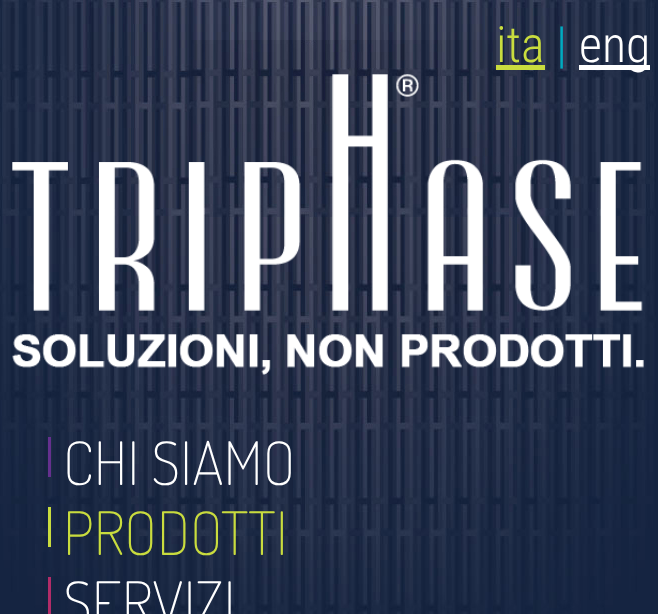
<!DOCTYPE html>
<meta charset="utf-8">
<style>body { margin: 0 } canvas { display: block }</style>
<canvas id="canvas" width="658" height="614"></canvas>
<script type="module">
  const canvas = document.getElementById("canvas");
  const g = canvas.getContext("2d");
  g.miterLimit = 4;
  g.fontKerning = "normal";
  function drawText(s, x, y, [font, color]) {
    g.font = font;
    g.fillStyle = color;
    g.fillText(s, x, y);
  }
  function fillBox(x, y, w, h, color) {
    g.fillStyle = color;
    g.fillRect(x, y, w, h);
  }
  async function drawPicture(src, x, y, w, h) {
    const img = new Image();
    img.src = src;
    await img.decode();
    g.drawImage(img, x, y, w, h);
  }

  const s1 = ["300 50px Roboto Condensed", "#C9DC3E"];
  const s2 = ["300 50px Roboto Condensed", "#01AAC0"];
  const s3 = ["300 50px Roboto Condensed", "#FFFFFF"];
  const s4 = ["200 60px Dosis", "#FFFFFF"];
  const s5 = ["200 60px Dosis", "#C9DC3E"];

  fillBox(0, 0, 658, 614, "#152440");
  await drawPicture("pic1.png", 0, 0, 656, 614);
  drawText("ita", 496, 62, s1);
  fillBox(496, 65, 49, 5, "#C9DC3E");
  drawText("|", 556, 62, s2);
  fillBox(579, 65, 71, 5, "#FFFFFF");
  drawText("eng", 579, 62, s3);
  await drawPicture("pic2.png", 12, 74, 632, 301);
  fillBox(48, 437, 3, 40, "#65308E");
  drawText("CHI SIAMO", 63, 485, s4);
  fillBox(48, 507, 3, 40, "#C9DC3E");
  drawText("PRODOTTI", 63, 555, s5);
  fillBox(48, 577, 3, 37, "#B22C68");
  drawText("SERVIZI", 63, 625, s4);
</script>
